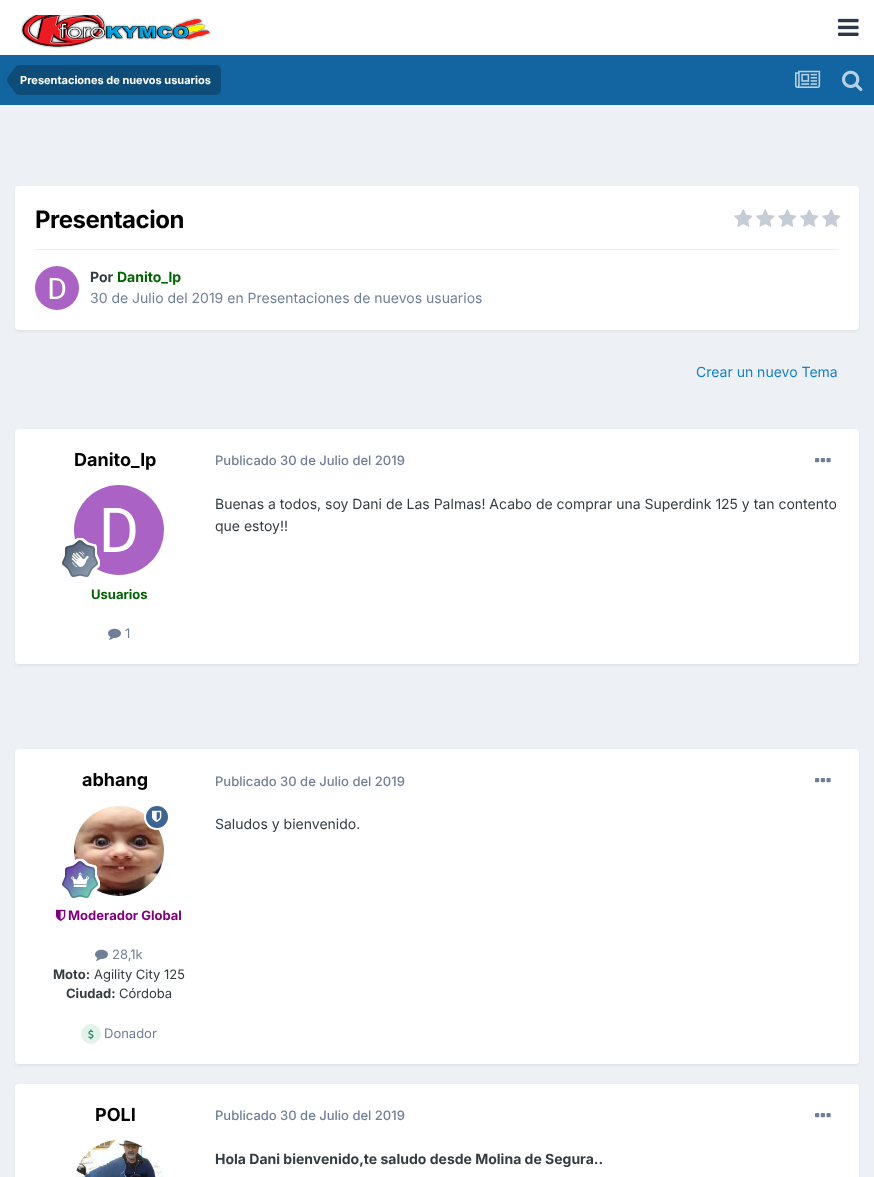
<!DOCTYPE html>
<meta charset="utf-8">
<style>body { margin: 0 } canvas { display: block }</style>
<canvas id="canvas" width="874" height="1177"></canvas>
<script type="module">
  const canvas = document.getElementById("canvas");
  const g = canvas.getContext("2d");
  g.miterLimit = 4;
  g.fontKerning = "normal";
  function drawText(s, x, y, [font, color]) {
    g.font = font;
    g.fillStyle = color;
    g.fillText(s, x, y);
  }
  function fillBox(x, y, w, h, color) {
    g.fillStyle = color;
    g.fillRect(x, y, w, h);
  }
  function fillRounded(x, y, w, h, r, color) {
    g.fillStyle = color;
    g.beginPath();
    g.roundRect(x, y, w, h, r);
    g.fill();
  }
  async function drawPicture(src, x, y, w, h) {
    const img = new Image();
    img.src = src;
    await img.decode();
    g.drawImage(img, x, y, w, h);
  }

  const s1 = ["bold 11px Inter", "#FFFFFF"];
  const s2 = ["bold 24px Inter", "#000000"];
  const s3 = ["bold 14px Inter", "#353C41"];
  const s4 = ["bold 14px Inter", "#006400"];
  const s5 = ["14px Inter", "#718096"];
  const s6 = ["14px Inter", "#177EC9"];
  const s7 = ["bold 18px Inter", "#000000"];
  const s8 = ["bold 13px Inter", "#006400"];
  const s9 = ["13px Inter", "#718096"];
  const s10 = ["500 13px Inter", "#718096"];
  const s11 = ["14px Inter", "#353C41"];
  const s12 = ["bold 13px Inter", "#800080"];
  const s13 = ["bold 13px Inter", "#353C41"];
  const s14 = ["13px Inter", "#353C41"];

  fillBox(0, 0, 874, 1177, "#EDF0F4");
  fillBox(0, 0, 874, 55, "#FFFFFF");
  await drawPicture("pic1.png", 20, 15, 191, 34);
  await drawPicture("pic2.png", 838, 18, 21, 18);
  fillBox(0, 55, 874, 50, "#1265A1");
  g.fillStyle = "#0E4C79";
  g.beginPath();
  g.roundRect(20, 65, 201, 30, [0, 5, 5, 0]);
  g.fill();
  g.beginPath();
  g.moveTo(20, 80);
  g.lineTo(20, 95);
  g.bezierCurveTo(15.5, 95, 13.5, 90.5, 11, 87);
  g.bezierCurveTo(9.5, 85, 7, 83, 7, 80);
  g.closePath();
  g.moveTo(20, 80);
  g.lineTo(7, 80);
  g.bezierCurveTo(7, 77, 9.5, 75, 11, 73);
  g.bezierCurveTo(13.5, 69.5, 15.5, 65, 20, 65);
  g.closePath();
  g.fill();
  drawText("Presentaciones de nuevos usuarios", 20, 84, s1);
  await drawPicture("pic3.png", 795, 70, 26, 18);
  await drawPicture("pic4.png", 842, 70, 21, 22);
  g.fillStyle = "rgba(45, 55, 72, 0.1)";
  g.filter = "blur(2px)";
  g.beginPath();
  g.roundRect(16, 189, 842, 142, 3);
  g.fill();
  g.filter = "none";
  fillRounded(15, 186, 844, 144, 4, "#FFFFFF");
  g.letterSpacing = "-0.5px";
  drawText("Presentacion", 35, 228, s2);
  await drawPicture("pic5.png", 734, 209, 19, 18);
  await drawPicture("pic5.png", 756, 209, 19, 18);
  await drawPicture("pic5.png", 778, 209, 19, 18);
  await drawPicture("pic5.png", 800, 209, 19, 18);
  await drawPicture("pic5.png", 822, 209, 19, 18);
  fillBox(35, 249, 804, 1, "#EFEFF0");
  await drawPicture("pic6.png", 35, 266, 44, 44);
  g.letterSpacing = "0px";
  drawText("Por", 90, 282, s3);
  drawText("Danito_lp", 117, 282, s4);
  drawText("30 de Julio del 2019 en Presentaciones de nuevos usuarios", 90, 303, s5);
  drawText("Crear un nuevo Tema", 696, 377, s6);
  g.fillStyle = "rgba(45, 55, 72, 0.1)";
  g.filter = "blur(2px)";
  g.beginPath();
  g.roundRect(16, 432, 842, 233, 3);
  g.fill();
  g.filter = "none";
  fillRounded(15, 429, 844, 235, 4, "#FFFFFF");
  drawText("Danito_lp", 74, 466, s7);
  await drawPicture("pic7.png", 74, 485, 90, 90);
  await drawPicture("pic8.png", 62, 538, 38, 39);
  drawText("Usuarios", 91, 599, s8);
  await drawPicture("pic9.png", 108, 628, 13, 12);
  drawText("1", 125, 638, s9);
  drawText("Publicado 30 de Julio del 2019", 215, 465, s10);
  await drawPicture("pic10.png", 815, 458, 16, 5);
  drawText("Buenas a todos, soy Dani de Las Palmas! Acabo de comprar una Superdink 125 y tan contento", 215, 509, s11);
  drawText("que estoy!!", 215, 531, s11);
  g.fillStyle = "rgba(45, 55, 72, 0.1)";
  g.filter = "blur(2px)";
  g.beginPath();
  g.roundRect(16, 752, 842, 313, 3);
  g.fill();
  g.filter = "none";
  fillRounded(15, 749, 844, 315, 4, "#FFFFFF");
  drawText("abhang", 82, 786, s7);
  await drawPicture("pic12.png", 74, 806, 90, 90);
  g.fillStyle = "#3D6594";
  g.beginPath();
  g.arc(157, 817, 12, 0, Math.PI * 2);
  g.fill();
  g.strokeStyle = "#FFFFFF";
  g.lineWidth = 2;
  g.stroke();
  await drawPicture("pic11.png", 152, 810, 10, 12);
  await drawPicture("pic13.png", 62, 859, 38, 39);
  await drawPicture("pic14.png", 56, 909, 10, 12);
  drawText("Moderador Global", 68, 920, s12);
  await drawPicture("pic9.png", 95, 949, 13, 12);
  drawText("28,1k", 112, 959, s9);
  drawText("Moto:", 53, 979, s13);
  drawText("Agility City 125", 94, 979, s14);
  drawText("Ciudad:", 66, 998, s13);
  drawText("Córdoba", 119, 998, s14);
  g.fillStyle = "#E3F3EC";
  g.beginPath();
  g.arc(91, 1034, 10, 0, Math.PI * 2);
  g.fill();
  await drawPicture("pic15.png", 88, 1029, 6, 11);
  drawText("Donador", 104, 1038, s9);
  drawText("Publicado 30 de Julio del 2019", 215, 786, s10);
  await drawPicture("pic10.png", 815, 778, 16, 5);
  drawText("Saludos y bienvenido.", 215, 829, s11);
  g.fillStyle = "rgba(45, 55, 72, 0.1)";
  g.filter = "blur(2px)";
  g.beginPath();
  g.roundRect(16, 1087, 842, 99, 3);
  g.fill();
  g.filter = "none";
  fillRounded(15, 1084, 844, 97, 4, "#FFFFFF");
  drawText("POLI", 95, 1121, s7);
  await drawPicture("pic16.png", 75, 1140, 88, 37);
  drawText("Publicado 30 de Julio del 2019", 215, 1120, s10);
  await drawPicture("pic10.png", 815, 1113, 16, 5);
  drawText("Hola Dani bienvenido,te saludo desde Molina de Segura..", 215, 1164, s3);
</script>
